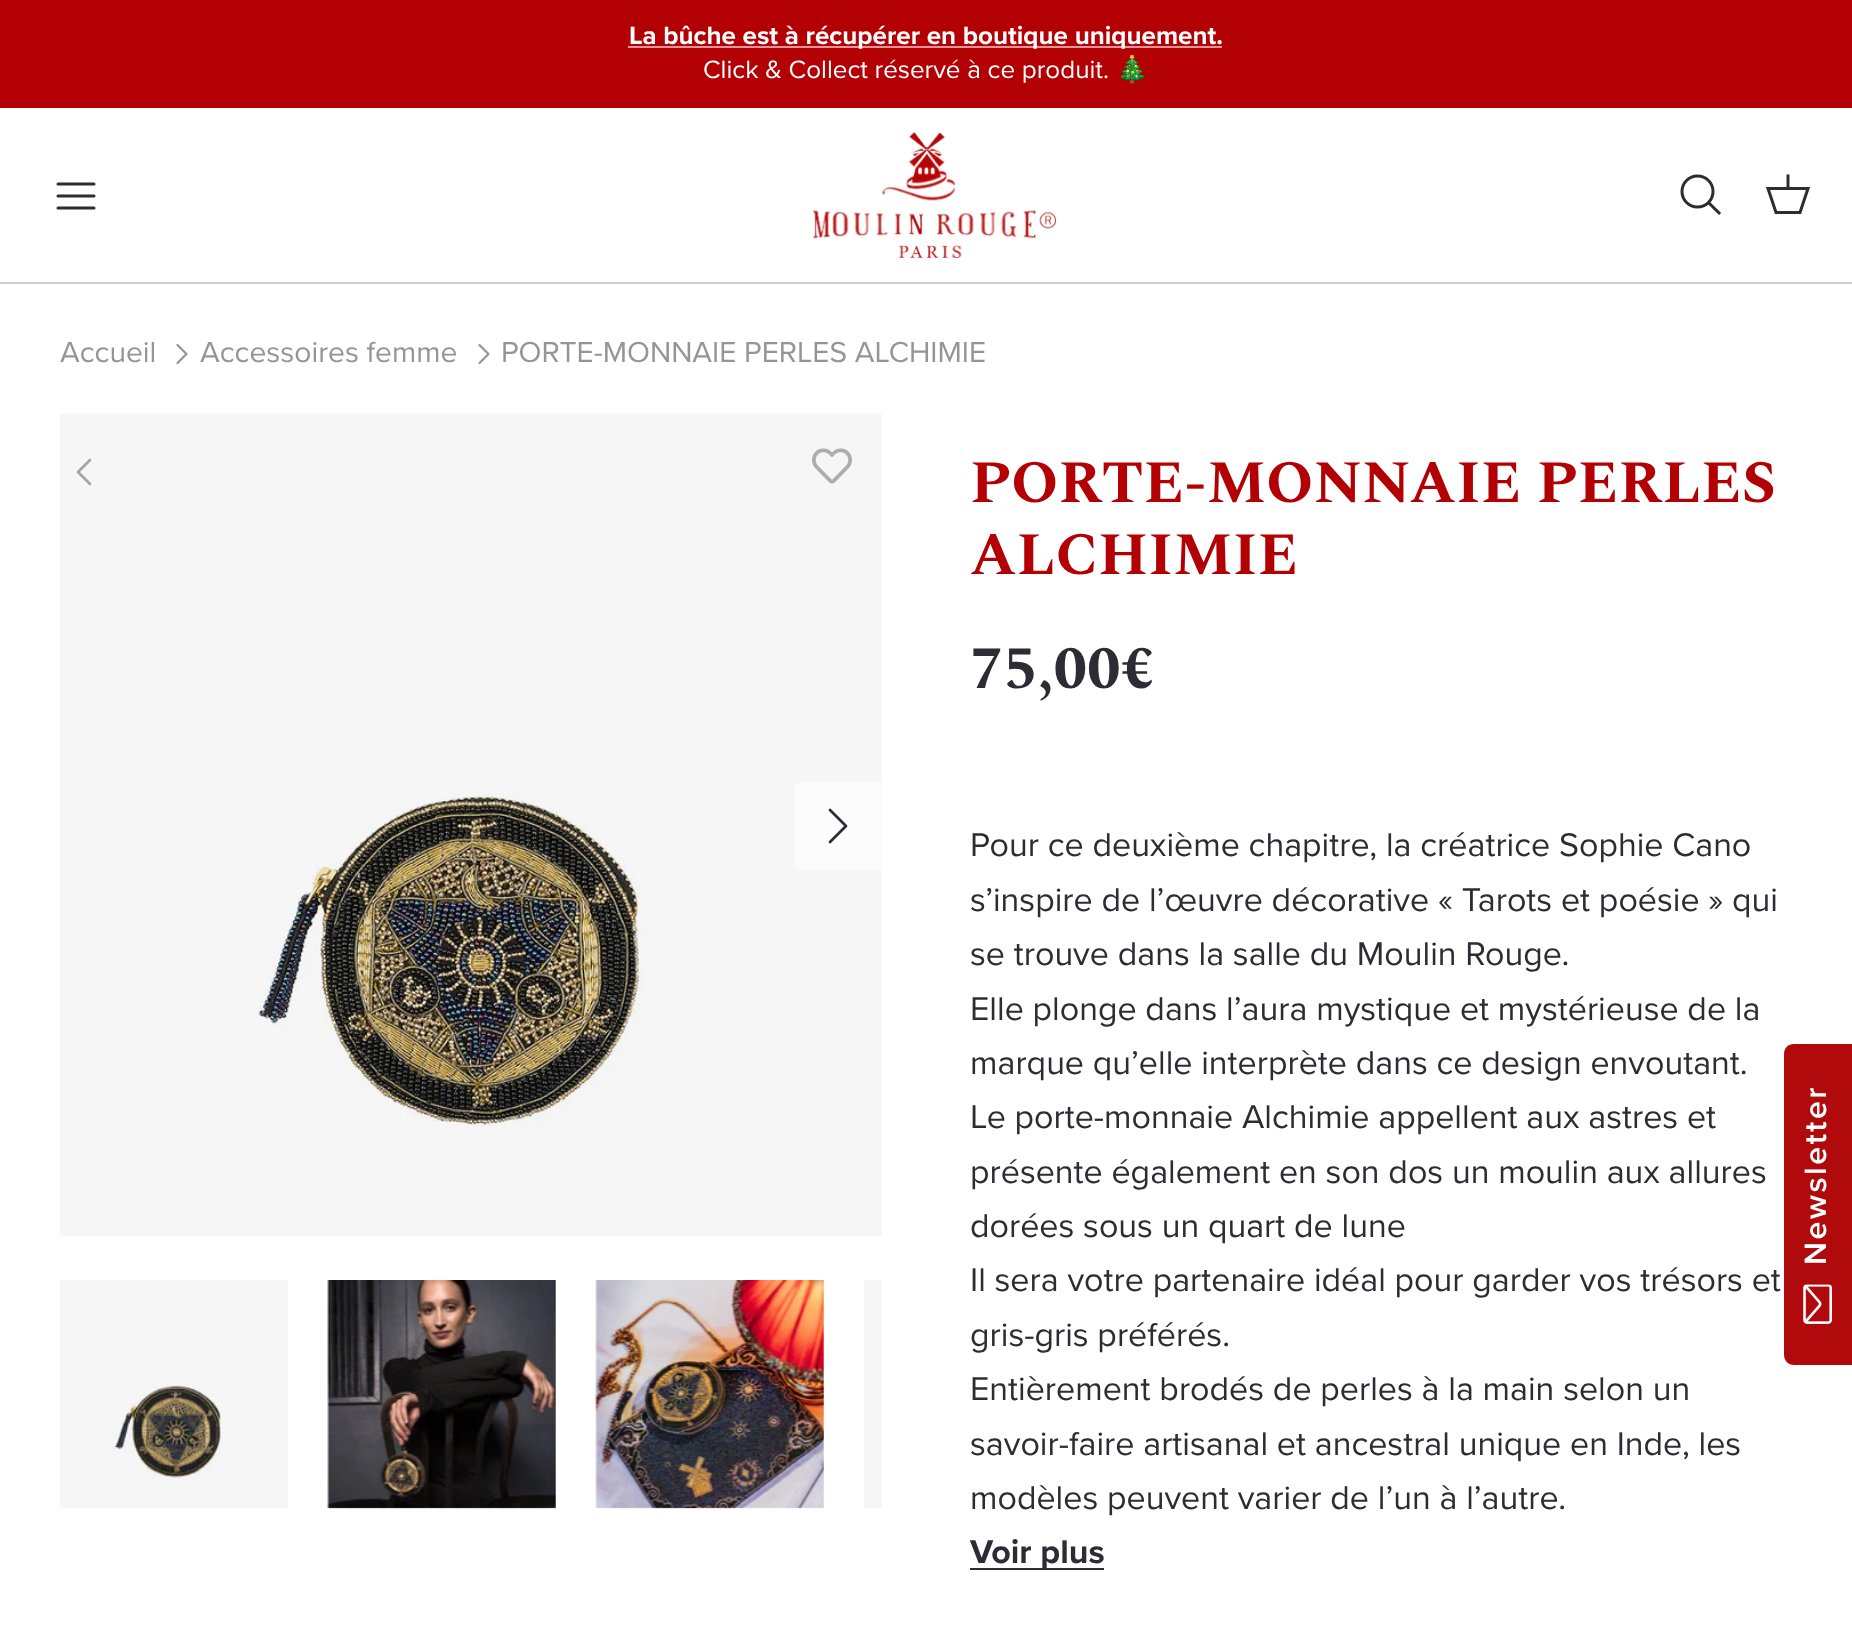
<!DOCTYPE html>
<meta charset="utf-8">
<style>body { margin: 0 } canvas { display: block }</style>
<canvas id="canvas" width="1852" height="1644"></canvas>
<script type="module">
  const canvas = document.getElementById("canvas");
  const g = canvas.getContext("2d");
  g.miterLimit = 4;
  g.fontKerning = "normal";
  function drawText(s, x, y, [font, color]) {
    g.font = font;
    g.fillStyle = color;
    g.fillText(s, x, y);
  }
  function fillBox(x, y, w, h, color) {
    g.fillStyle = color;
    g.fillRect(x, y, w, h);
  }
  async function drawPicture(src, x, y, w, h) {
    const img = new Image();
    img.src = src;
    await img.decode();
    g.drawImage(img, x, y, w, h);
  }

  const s1 = ["bold 26px Proxima Nova", "#FFFFFF"];
  const s2 = ["26px Proxima Nova", "#FFFFFF"];
  const s3 = ["26px Noto Color Emoji", "#FFFFFF"];
  const s4 = ["30px Proxima Nova", "#959595"];
  const s5 = ["bold 60px Spectral", "#B20004"];
  const s6 = ["bold 60px Spectral", "#2D2B34"];
  const s7 = ["34px Proxima Nova", "#2D2B34"];
  const s8 = ["bold 34px Proxima Nova", "#2D2B34"];

  fillBox(0, 0, 1852, 1644, "#FFFFFF");
  fillBox(0, 0, 1852, 108, "#B20004");
  fillBox(628, 46, 594, 2, "#E0999B");
  drawText("La bûche est à récupérer en boutique uniquement.", 629, 44, s1);
  drawText("Click & Collect réservé à ce produit.", 703, 78, s2);
  drawText("🎄", 1116, 78, s3);
  fillBox(0, 282, 1852, 2, "#CECECE");
  g.beginPath();
  g.moveTo(58, 196);
  g.lineTo(94, 196);
  g.moveTo(58, 184);
  g.lineTo(94, 184);
  g.moveTo(58, 208);
  g.lineTo(94, 208);
  g.strokeStyle = "#2D2B34";
  g.lineWidth = 3;
  g.lineCap = "round";
  g.lineJoin = "round";
  g.stroke();
  await drawPicture("pic1.png", 812, 132, 244, 126);
  g.beginPath();
  g.arc(1697.5, 191.5, 15.5, 0, Math.PI * 2);
  g.stroke();
  g.beginPath();
  g.moveTo(1710, 204);
  g.lineTo(1719, 213);
  g.lineCap = "square";
  g.lineJoin = "miter";
  g.stroke();
  g.beginPath();
  g.moveTo(1768, 188.5);
  g.lineTo(1808, 188.5);
  g.lineTo(1800, 212.5);
  g.lineTo(1776, 212.5);
  g.closePath();
  g.lineCap = "butt";
  g.stroke();
  g.beginPath();
  g.moveTo(1788, 188);
  g.lineTo(1788, 176);
  g.lineCap = "square";
  g.stroke();
  drawText("Accueil", 60, 362, s4);
  g.beginPath();
  g.moveTo(177.5, 363);
  g.lineTo(186.5, 354);
  g.lineTo(177.5, 345);
  g.strokeStyle = "#959595";
  g.lineWidth = 2.2;
  g.lineCap = "round";
  g.lineJoin = "round";
  g.stroke();
  drawText("Accessoires femme", 200, 362, s4);
  g.beginPath();
  g.moveTo(479.5, 363);
  g.lineTo(488.5, 354);
  g.lineTo(479.5, 345);
  g.stroke();
  drawText("PORTE-MONNAIE PERLES ALCHIMIE", 501, 362, s4);
  await drawPicture("pic2.png", 60, 414, 822, 822);
  await drawPicture("pic3.png", 812, 448, 40, 36);
  g.fillStyle = "#FCFCFC";
  g.beginPath();
  g.roundRect(794, 782, 88, 88, [6, 0, 0, 6]);
  g.fill();
  g.beginPath();
  g.moveTo(830, 842);
  g.lineTo(846, 826);
  g.lineTo(830, 810);
  g.strokeStyle = "#2D2B34";
  g.lineWidth = 2.7;
  g.stroke();
  await drawPicture("pic4.png", 60, 1280, 228, 228);
  await drawPicture("pic5.png", 327, 1280, 229, 229);
  await drawPicture("pic6.png", 595, 1280, 229, 229);
  fillBox(864, 1280, 18, 228, "#F6F6F6");
  g.beginPath();
  g.moveTo(90, 484);
  g.lineTo(78, 472);
  g.lineTo(90, 460);
  g.strokeStyle = "#A3A3A3";
  g.lineWidth = 2.6;
  g.stroke();
  drawText("PORTE-MONNAIE PERLES", 970, 502, s5);
  drawText("ALCHIMIE", 970, 574, s5);
  drawText("75,00€", 970, 688, s6);
  drawText("Pour ce deuxième chapitre, la créatrice Sophie Cano", 970, 856, s7);
  drawText("s’inspire de l’œuvre décorative « Tarots et poésie » qui", 970, 911, s7);
  drawText("se trouve dans la salle du Moulin Rouge.", 970, 965, s7);
  drawText("Elle plonge dans l’aura mystique et mystérieuse de la", 970, 1020, s7);
  drawText("marque qu’elle interprète dans ce design envoutant.", 970, 1074, s7);
  drawText("Le porte-monnaie Alchimie appellent aux astres et", 970, 1128, s7);
  drawText("présente également en son dos un moulin aux allures", 970, 1183, s7);
  drawText("dorées sous un quart de lune", 970, 1237, s7);
  drawText("Il sera votre partenaire idéal pour garder vos trésors et", 970, 1291, s7);
  drawText("gris-gris préférés.", 970, 1346, s7);
  drawText("Entièrement brodés de perles à la main selon un", 970, 1400, s7);
  drawText("savoir-faire artisanal et ancestral unique en Inde, les", 970, 1455, s7);
  drawText("modèles peuvent varier de l’un à l’autre.", 970, 1509, s7);
  fillBox(970, 1568, 134, 2, "#2D2B34");
  drawText("Voir plus", 970, 1563, s8);
  g.fillStyle = "#B10A0C";
  g.beginPath();
  g.moveTo(1784, 1355);
  g.lineTo(1784, 1054);
  g.bezierCurveTo(1784, 1048, 1788, 1044, 1794, 1044);
  g.lineTo(1852, 1044);
  g.lineTo(1852, 1365);
  g.lineTo(1794, 1365);
  g.bezierCurveTo(1788, 1365, 1784, 1360, 1784, 1355);
  g.closePath();
  g.fill();
  g.letterSpacing = "2.5px";
  g.font = "600 32px Proxima Nova";
  g.fillStyle = "#FFFFFF";
  g.save();
  g.translate(1826, 1265);
  g.rotate(-90 * Math.PI / 180);
  g.fillText("Newsletter", 0, 0);
  g.restore();
  await drawPicture("pic7.png", 1803, 1284, 29, 40);
</script>
